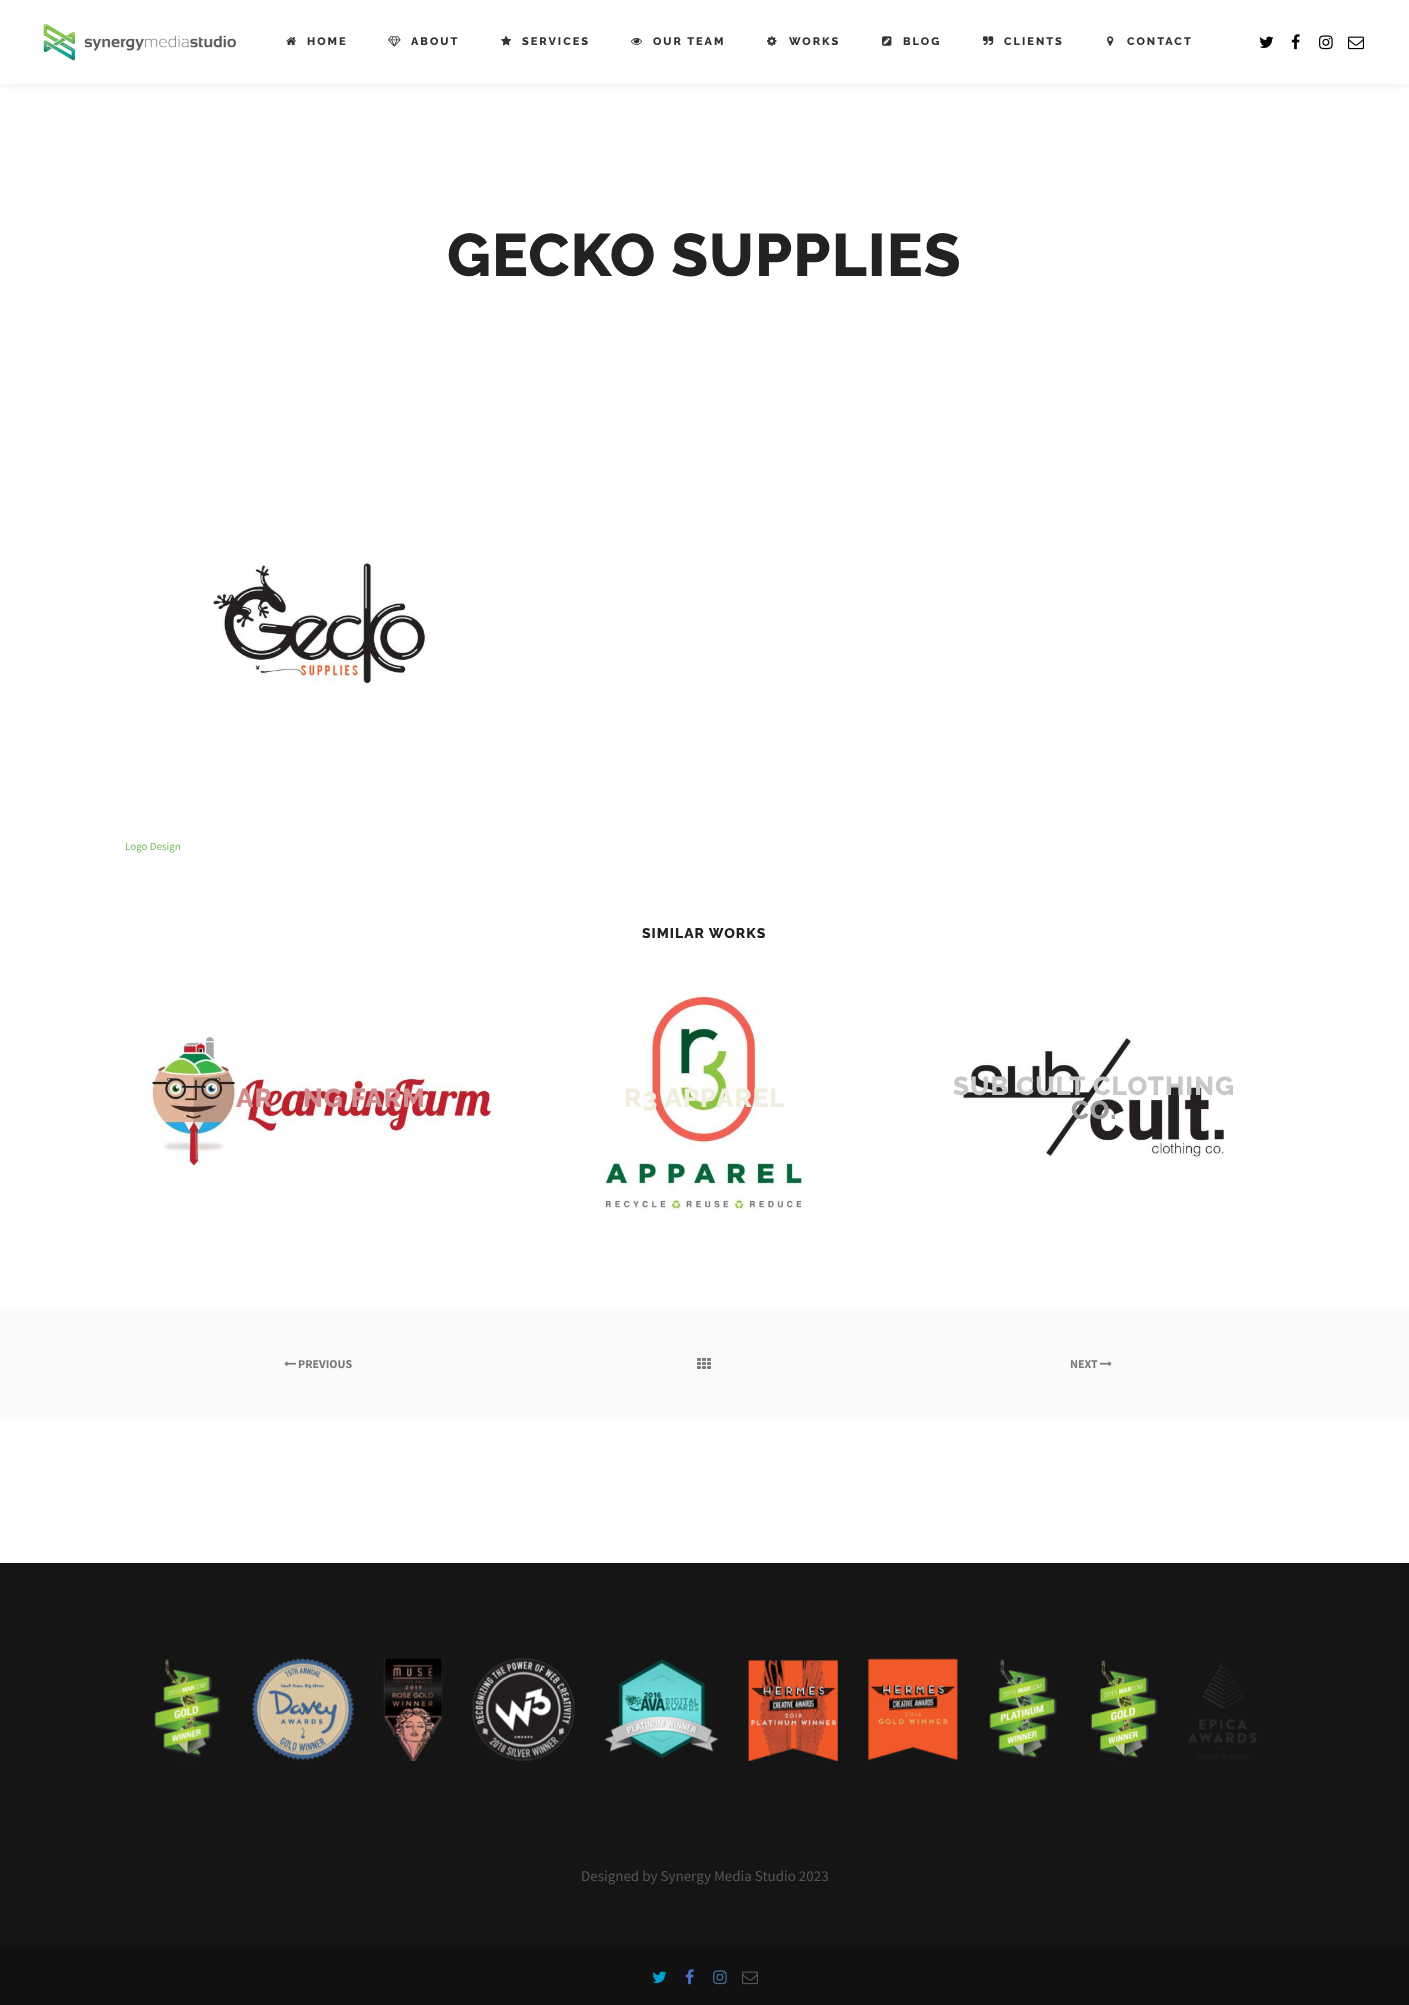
<!DOCTYPE html>
<meta charset="utf-8">
<style>body { margin: 0 } canvas { display: block }</style>
<canvas id="canvas" width="1409" height="2005"></canvas>
<script type="module">
  const canvas = document.getElementById("canvas");
  const g = canvas.getContext("2d");
  g.miterLimit = 4;
  g.fontKerning = "normal";
  function drawText(s, x, y, [font, color]) {
    g.font = font;
    g.fillStyle = color;
    g.fillText(s, x, y);
  }
  function fillBox(x, y, w, h, color) {
    g.fillStyle = color;
    g.fillRect(x, y, w, h);
  }
  async function drawPicture(src, x, y, w, h) {
    const img = new Image();
    img.src = src;
    await img.decode();
    g.drawImage(img, x, y, w, h);
  }

  const s1 = ["800 11px Raleway", "#333333"];
  const s2 = ["800 60px Raleway", "#222222"];
  const s3 = ["11px Source Sans Pro", "#75BB5C"];
  const s4 = ["800 14px Raleway", "#222222"];
  const s5 = ["800 26px Raleway", "#D38D90"];
  const s6 = ["800 26px Raleway", "#F0EEDE"];
  const s7 = ["800 26px Raleway", "#C8C8C8"];
  const s8 = ["800 26px Raleway", "#9F9E9E"];
  const s9 = ["bold 12px Source Sans Pro", "#7A7A7A"];
  const s10 = ["15px Source Sans Pro", "#565656"];

  fillBox(0, 0, 1409, 2005, "#FFFFFF");
  g.save();
  g.beginPath();
  g.rect(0, 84, 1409, 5);
  g.clip();
  g.fillStyle = "rgba(0, 0, 0, 0.09)";
  g.filter = "blur(6px)";
  g.beginPath();
  g.rect(0, 0, 1409, 84);
  g.fill();
  g.filter = "none";
  g.restore();
  await drawPicture("pic1.png", 43, 23, 193, 38);
  await drawPicture("pic2.png", 286, 37, 10, 8);
  g.letterSpacing = "2px";
  drawText("HOME", 307, 45, s1);
  await drawPicture("pic3.png", 388, 36, 13, 11);
  drawText("ABOUT", 411, 45, s1);
  await drawPicture("pic4.png", 501, 35, 11, 11);
  drawText("SERVICES", 522, 45, s1);
  await drawPicture("pic5.png", 631, 37, 11, 8);
  drawText("OUR TEAM", 653, 45, s1);
  await drawPicture("pic6.png", 767, 36, 10, 10);
  drawText("WORKS", 789, 45, s1);
  await drawPicture("pic7.png", 882, 36, 10, 10);
  drawText("BLOG", 903, 45, s1);
  await drawPicture("pic8.png", 983, 36, 11, 9);
  drawText("CLIENTS", 1004, 45, s1);
  await drawPicture("pic9.png", 1107, 36, 7, 10);
  drawText("CONTACT", 1127, 45, s1);
  await drawPicture("pic10.png", 1259, 36, 15, 12);
  await drawPicture("pic11.png", 1291, 34, 9, 16);
  await drawPicture("pic12.png", 1319, 35, 14, 15);
  await drawPicture("pic13.png", 1348, 36, 16, 14);
  g.letterSpacing = "1px";
  drawText("GECKO SUPPLIES", 447, 276, s2);
  await drawPicture("pic14.png", 213, 561, 215, 125);
  g.letterSpacing = "0px";
  drawText("Logo Design", 125, 850, s3);
  g.letterSpacing = "1px";
  drawText("SIMILAR WORKS", 642, 938, s4);
  await drawPicture("pic15.png", 147, 1037, 351, 134);
  drawText("AR", 236, 1107, s5);
  drawText("NG FARM", 303, 1107, s5);
  await drawPicture("pic16.png", 600, 989, 205, 222);
  drawText("R3 APPAREL", 624, 1107, s6);
  await drawPicture("pic17.png", 962, 1036, 263, 122);
  drawText("SUB CULT CLOTHING", 953, 1095, s7);
  drawText("CO.", 1071, 1119, s8);
  fillBox(0, 1309, 1409, 110, "#FAFAFA");
  await drawPicture("pic18.png", 284, 1361, 12, 6);
  g.letterSpacing = "0px";
  drawText("PREVIOUS", 298, 1368, s9);
  await drawPicture("pic19.png", 697, 1358, 14, 11);
  drawText("NEXT", 1070, 1368, s9);
  await drawPicture("pic20.png", 1100, 1361, 12, 6);
  fillBox(0, 1563, 1409, 385, "#151515");
  await drawPicture("pic21.png", 154, 1658, 1103, 103);
  drawText("Designed by Synergy Media Studio 2023", 581, 1881, s10);
  fillBox(0, 1948, 1409, 57, "#111111");
  await drawPicture("pic22.png", 652, 1971, 15, 12);
  await drawPicture("pic23.png", 685, 1969, 9, 16);
  await drawPicture("pic24.png", 713, 1970, 14, 15);
  await drawPicture("pic25.png", 742, 1971, 16, 14);
</script>
